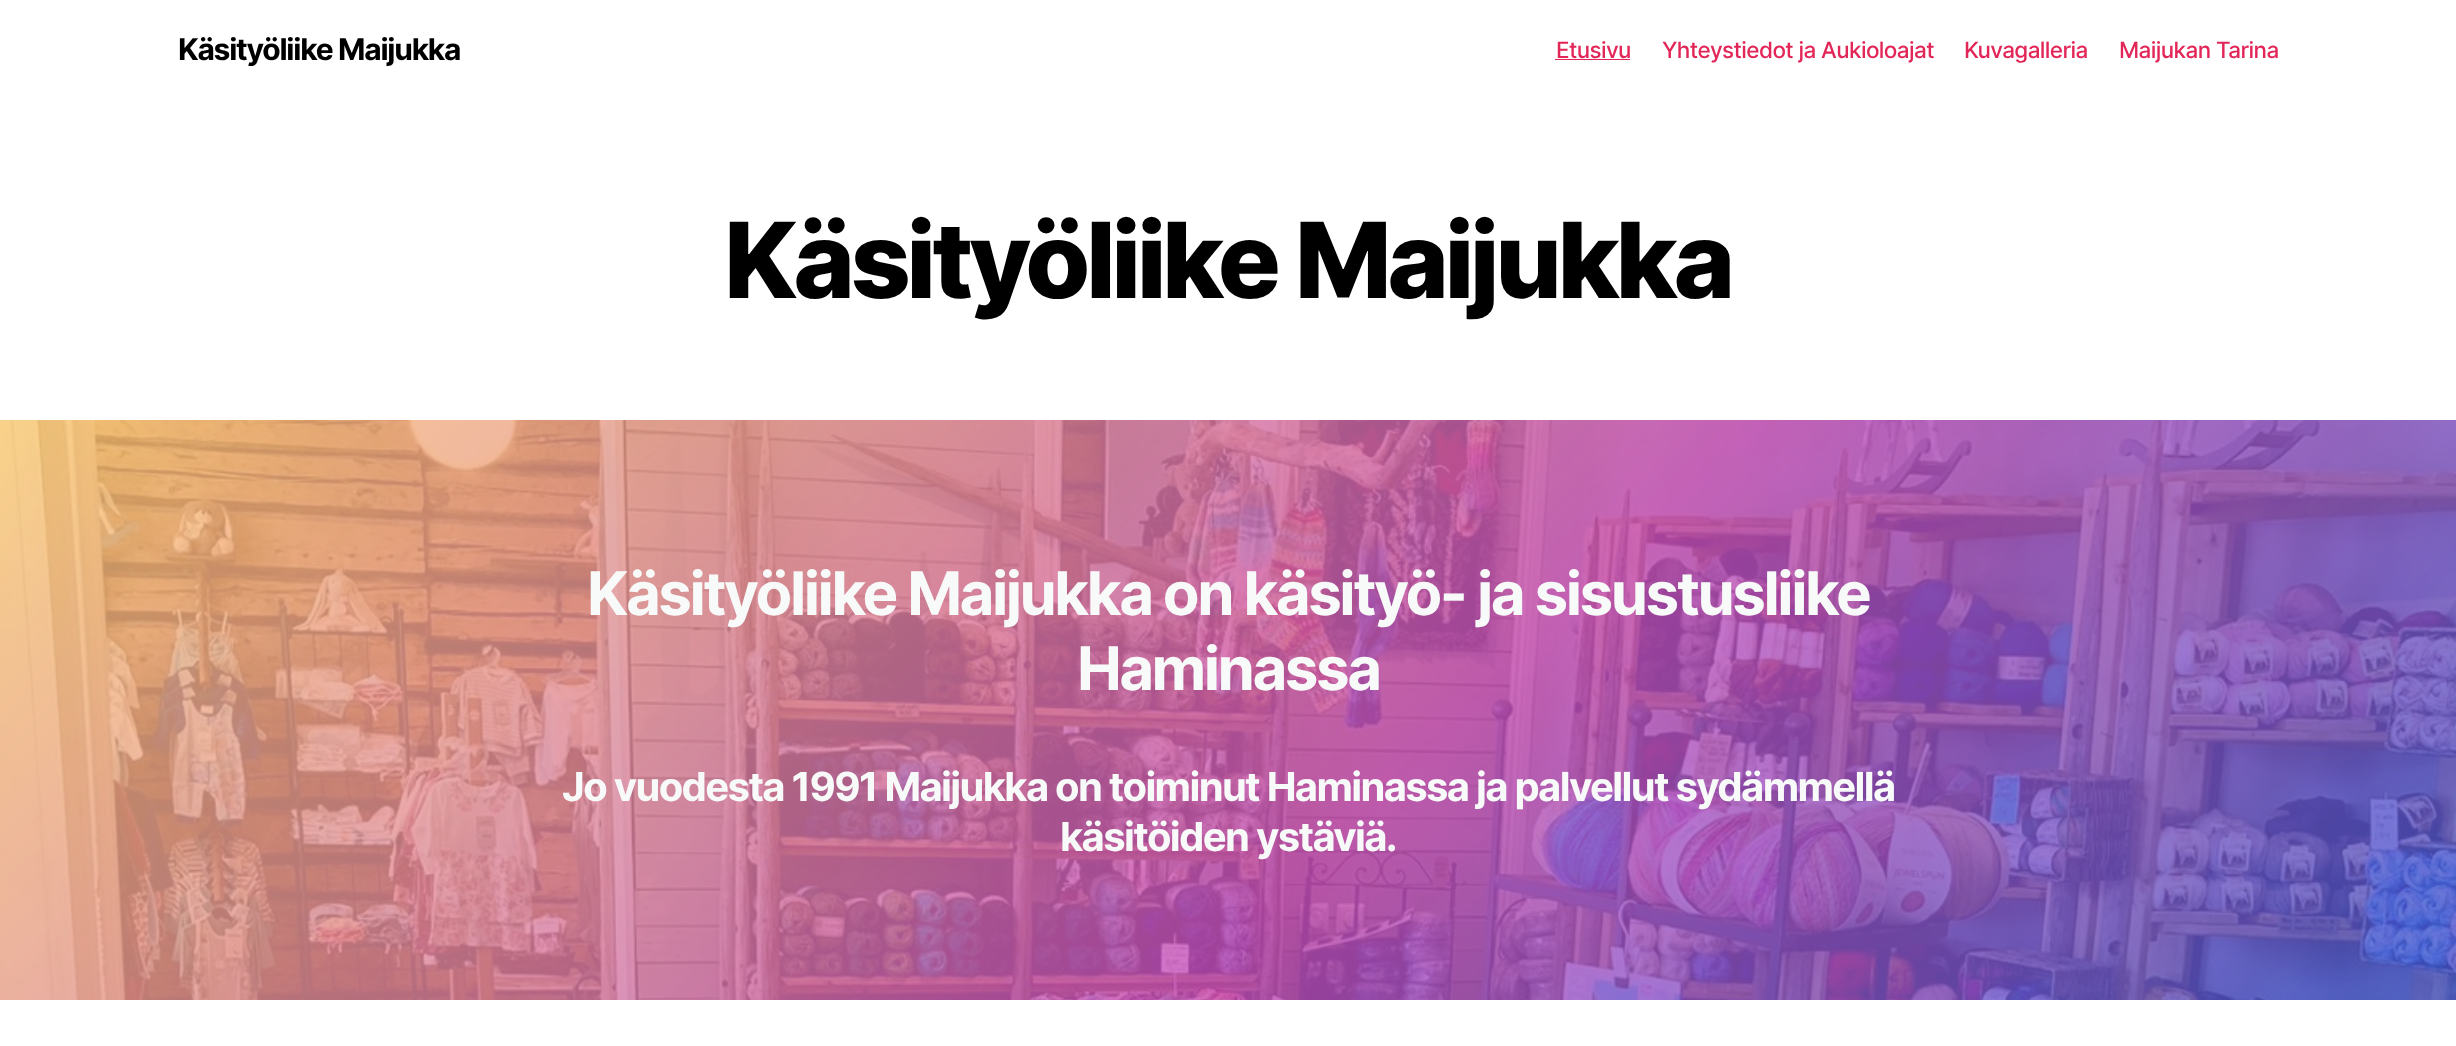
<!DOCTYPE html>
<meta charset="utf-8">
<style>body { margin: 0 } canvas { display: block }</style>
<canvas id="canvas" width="2456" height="1046"></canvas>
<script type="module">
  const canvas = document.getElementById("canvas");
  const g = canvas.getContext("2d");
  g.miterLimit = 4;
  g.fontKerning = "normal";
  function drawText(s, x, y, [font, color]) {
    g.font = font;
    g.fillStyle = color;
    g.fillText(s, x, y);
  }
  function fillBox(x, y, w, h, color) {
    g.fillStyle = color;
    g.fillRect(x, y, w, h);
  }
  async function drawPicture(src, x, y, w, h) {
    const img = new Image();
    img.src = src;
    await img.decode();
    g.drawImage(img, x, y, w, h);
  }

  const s1 = ["bold 30px Inter", "#000000"];
  const s2 = ["500 22.5px Inter", "#E22658"];
  const s3 = ["800 105px Inter", "#000000"];
  const s4 = ["bold 60px Inter", "#F8F9F9"];
  const s5 = ["bold 40px Inter", "#F8F9F9"];

  fillBox(0, 0, 2456, 1046, "#FFFFFF");
  g.letterSpacing = "-1.25px";
  drawText("Käsityöliike Maijukka", 178, 60, s1);
  g.letterSpacing = "-0.6px";
  drawText("Etusivu", 1556, 58, s2);
  fillBox(1555, 59, 75, 1, "#E22658");
  drawText("Yhteystiedot ja Aukioloajat", 1662, 58, s2);
  drawText("Kuvagalleria", 1964, 58, s2);
  drawText("Maijukan Tarina", 2119, 58, s2);
  g.letterSpacing = "-4.4px";
  drawText("Käsityöliike Maijukka", 724, 298, s3);
  await drawPicture("pic1.png", 0, 420, 2456, 580);
  g.letterSpacing = "-2.5px";
  drawText("Käsityöliike Maijukka on käsityö- ja sisustusliike", 587, 615, s4);
  drawText("Haminassa", 1077, 690, s4);
  g.letterSpacing = "-1.65px";
  drawText("Jo vuodesta 1991 Maijukka on toiminut Haminassa ja palvellut sydämmellä", 562, 801, s5);
  drawText("käsitöiden ystäviä.", 1060, 851, s5);
</script>
